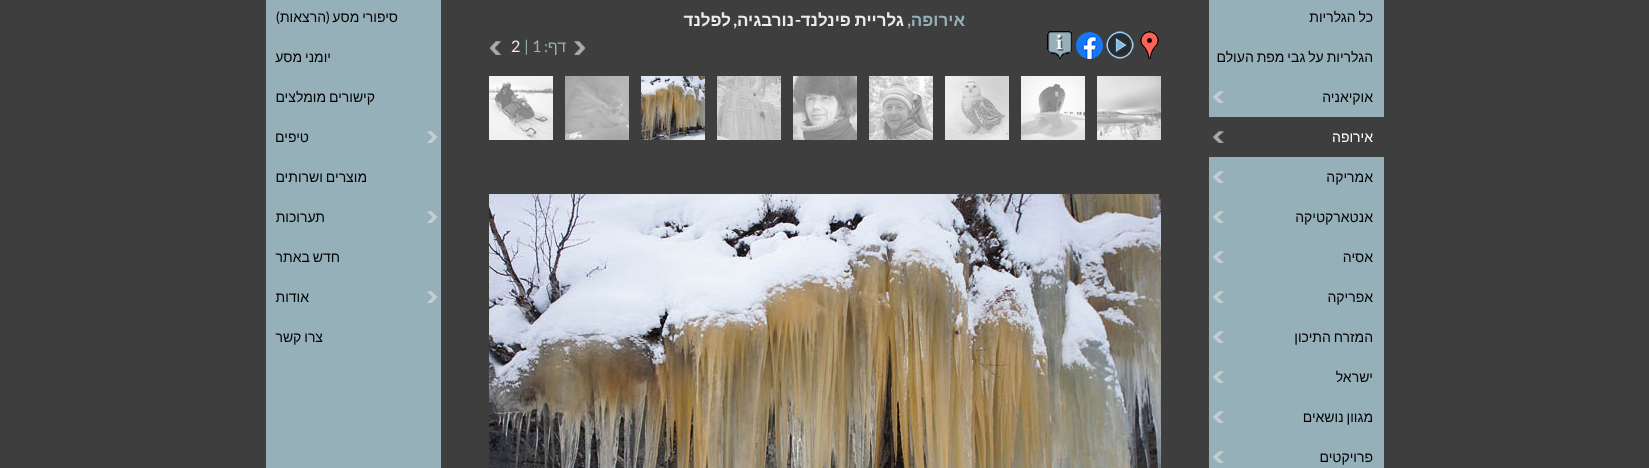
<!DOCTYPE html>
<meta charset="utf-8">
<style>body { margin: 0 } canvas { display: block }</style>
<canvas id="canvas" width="1649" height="468"></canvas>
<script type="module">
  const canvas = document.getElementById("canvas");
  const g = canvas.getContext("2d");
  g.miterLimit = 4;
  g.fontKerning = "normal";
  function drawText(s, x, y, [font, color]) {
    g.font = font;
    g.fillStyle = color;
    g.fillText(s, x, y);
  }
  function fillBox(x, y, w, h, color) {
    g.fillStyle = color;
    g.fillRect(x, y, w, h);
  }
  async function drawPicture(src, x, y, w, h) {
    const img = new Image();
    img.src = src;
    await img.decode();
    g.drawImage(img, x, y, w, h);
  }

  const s1 = ["14px Liberation Sans", "#000000"];
  const s2 = ["14px Liberation Sans", "#FFFFFF"];
  const s3 = ["14px Lato", "#000000"];
  const s4 = ["bold 17px Liberation Sans", "#95B0B9"];
  const s5 = ["bold 17px Liberation Sans", "#EBEBEB"];
  const s6 = ["bold 17px Lato", "#EBEBEB"];
  const s7 = ["bold 17px Lato", "#95B0B9"];
  const s8 = ["16px Liberation Sans", "#95B0B9"];
  const s9 = ["16px Lato", "#95B0B9"];
  const s10 = ["16px Lato", "#EBEBEB"];

  fillBox(0, 0, 1649, 468, "#3E3E3E");
  fillBox(1209, 0, 175, 468, "#95B0B9");
  g.wordSpacing = "-1px";
  g.direction = "rtl";
  drawText("כל הגלריות", 1373, 22, s1);
  drawText("הגלריות על גבי מפת העולם", 1373, 62, s1);
  await drawPicture("pic1.png", 1213, 91, 11, 12);
  g.wordSpacing = "0px";
  drawText("אוקיאניה", 1373, 102, s1);
  fillBox(1209, 117, 175, 40, "#3E3E3E");
  await drawPicture("pic2.png", 1212, 131, 12, 12);
  drawText("אירופה", 1373, 142, s2);
  await drawPicture("pic1.png", 1213, 171, 11, 12);
  drawText("אמריקה", 1373, 182, s1);
  await drawPicture("pic1.png", 1213, 211, 11, 12);
  drawText("אנטארקטיקה", 1373, 222, s1);
  await drawPicture("pic1.png", 1213, 251, 11, 12);
  drawText("אסיה", 1373, 262, s1);
  await drawPicture("pic1.png", 1213, 291, 11, 12);
  drawText("אפריקה", 1373, 302, s1);
  await drawPicture("pic1.png", 1213, 331, 11, 12);
  g.wordSpacing = "-1px";
  drawText("המזרח התיכון", 1373, 342, s1);
  await drawPicture("pic1.png", 1213, 371, 11, 12);
  g.wordSpacing = "0px";
  drawText("ישראל", 1373, 382, s1);
  await drawPicture("pic1.png", 1213, 411, 11, 12);
  g.wordSpacing = "-1px";
  drawText("מגוון נושאים", 1373, 422, s1);
  await drawPicture("pic1.png", 1213, 451, 11, 12);
  g.wordSpacing = "0px";
  drawText("פרויקטים", 1373, 462, s1);
  fillBox(266, 0, 175, 468, "#95B0B9");
  g.wordSpacing = "-1px";
  drawText("סיפורי מסע", 398, 22, s1);
  g.wordSpacing = "0px";
  drawText("(", 330, 22, s3);
  drawText("הרצאות", 326, 22, s1);
  drawText(")", 280, 22, s3);
  g.wordSpacing = "-1px";
  drawText("יומני מסע", 331, 62, s1);
  drawText("קישורים מומלצים", 375, 102, s1);
  await drawPicture("pic3.png", 427, 131, 10, 12);
  g.wordSpacing = "0px";
  drawText("טיפים", 309, 142, s1);
  g.wordSpacing = "-1px";
  drawText("מוצרים ושרותים", 367, 182, s1);
  await drawPicture("pic3.png", 427, 211, 10, 12);
  g.wordSpacing = "0px";
  drawText("תערוכות", 325, 222, s1);
  g.wordSpacing = "-1px";
  drawText("חדש באתר", 340, 262, s1);
  await drawPicture("pic3.png", 427, 291, 10, 12);
  g.wordSpacing = "0px";
  drawText("אודות", 309, 302, s1);
  g.wordSpacing = "-1px";
  drawText("צרו קשר", 323, 342, s1);
  g.wordSpacing = "0px";
  drawText("אירופה", 965, 26, s4);
  g.wordSpacing = "-1px";
  drawText("גלריית פינלנד", 904, 26, s5);
  g.wordSpacing = "0px";
  drawText("-", 801, 26, s6);
  drawText("נורבגיה", 794, 26, s5);
  drawText("לפלנד", 731, 26, s5);
  drawText(",", 911, 26, s7);
  drawText(",", 737, 26, s6);
  await drawPicture("pic4.png", 1140, 31, 19, 28);
  await drawPicture("pic5.png", 1106, 31, 28, 28);
  await drawPicture("pic6.png", 1076, 32, 27, 27);
  await drawPicture("pic7.png", 1047, 31, 25, 28);
  await drawPicture("pic8.png", 574, 41, 12, 14);
  drawText("דף", 566, 52, s8);
  drawText(":", 548, 52, s9);
  g.direction = "ltr";
  drawText("| 1", 524, 52, s9);
  drawText("2", 511, 52, s10);
  await drawPicture("pic9.png", 489, 41, 13, 14);
  await drawPicture("pic10.png", 1097, 76, 64, 64);
  await drawPicture("pic11.png", 1021, 76, 64, 64);
  await drawPicture("pic12.png", 945, 76, 64, 64);
  await drawPicture("pic13.png", 869, 76, 64, 64);
  await drawPicture("pic14.png", 793, 76, 64, 64);
  await drawPicture("pic15.png", 717, 76, 64, 64);
  await drawPicture("pic16.png", 641, 76, 64, 64);
  await drawPicture("pic17.png", 565, 76, 64, 64);
  await drawPicture("pic18.png", 489, 76, 64, 64);
  await drawPicture("pic19.png", 489, 194, 672, 274);
</script>
